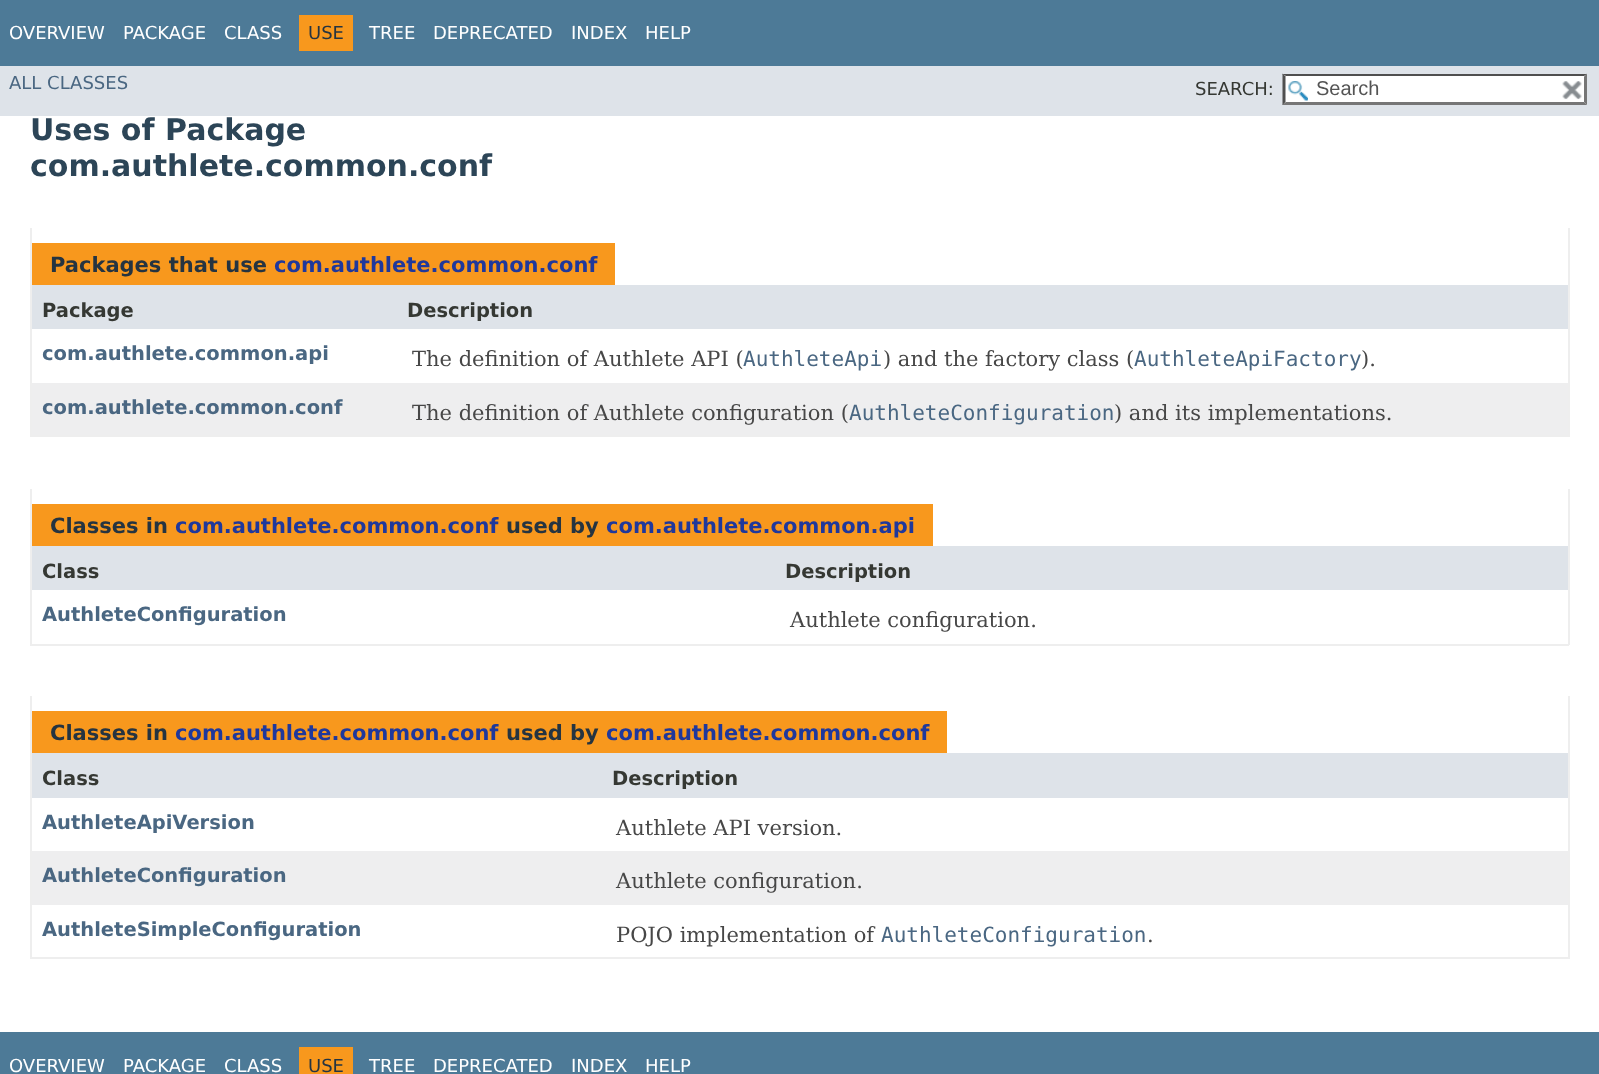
<!DOCTYPE html>
<meta charset="utf-8">
<style>body { margin: 0 } canvas { display: block }</style>
<canvas id="canvas" width="1599" height="1074"></canvas>
<script type="module">
  const canvas = document.getElementById("canvas");
  const g = canvas.getContext("2d");
  g.miterLimit = 4;
  g.fontKerning = "normal";
  function drawText(s, x, y, [font, color]) {
    g.font = font;
    g.fillStyle = color;
    g.fillText(s, x, y);
  }
  function fillBox(x, y, w, h, color) {
    g.fillStyle = color;
    g.fillRect(x, y, w, h);
  }
  async function drawPicture(src, x, y, w, h) {
    const img = new Image();
    img.src = src;
    await img.decode();
    g.drawImage(img, x, y, w, h);
  }

  const s1 = ["18px DejaVu Sans", "#FFFFFF"];
  const s2 = ["18px DejaVu Sans", "#253441"];
  const s3 = ["18px DejaVu Sans", "#4A6782"];
  const s4 = ["18px DejaVu Sans", "#353833"];
  const s5 = ["20px Liberation Sans", "#545454"];
  const s6 = ["bold 30px DejaVu Sans", "#2C4557"];
  const s7 = ["bold 21px DejaVu Sans", "#253441"];
  const s8 = ["bold 21px DejaVu Sans", "#1F389C"];
  const s9 = ["bold 19.5px DejaVu Sans", "#353833"];
  const s10 = ["bold 19.5px DejaVu Sans", "#4A6782"];
  const s11 = ["21px DejaVu Serif", "#474747"];
  const s12 = ["21px DejaVu Sans Mono", "#4A6782"];

  fillBox(0, 0, 1599, 1074, "#FFFFFF");
  fillBox(0, 0, 1599, 66, "#4D7A97");
  drawText("OVERVIEW", 9, 39, s1);
  drawText("PACKAGE", 123, 39, s1);
  drawText("CLASS", 224, 39, s1);
  fillBox(299, 15, 54, 36, "#F8981D");
  drawText("USE", 308, 39, s2);
  drawText("TREE", 369, 39, s1);
  drawText("DEPRECATED", 433, 39, s1);
  drawText("INDEX", 571, 39, s1);
  drawText("HELP", 645, 39, s1);
  fillBox(0, 66, 1599, 50, "#DEE3E9");
  drawText("ALL CLASSES", 9, 89, s3);
  drawText("SEARCH:", 1195, 95, s4);
  fillBox(1283, 74, 304, 31, "#FFFFFF");
  await drawPicture("pic1.png", 1288, 81, 20, 20);
  g.fillStyle = "#4F4F4F";
  g.beginPath();
  g.moveTo(1282, 74);
  g.lineTo(1587, 74);
  g.lineTo(1584, 76);
  g.lineTo(1286, 76);
  g.closePath();
  g.fill();
  g.fillStyle = "#767676";
  g.beginPath();
  g.moveTo(1587, 73.5);
  g.lineTo(1587, 105);
  g.lineTo(1584, 102);
  g.lineTo(1584, 76.5);
  g.closePath();
  g.fill();
  g.beginPath();
  g.moveTo(1587, 105);
  g.lineTo(1282, 105);
  g.lineTo(1286, 102);
  g.lineTo(1584, 102);
  g.closePath();
  g.fill();
  g.fillStyle = "#4F4F4F";
  g.beginPath();
  g.moveTo(1282.5, 105);
  g.lineTo(1282.5, 73.5);
  g.lineTo(1285.5, 76.5);
  g.lineTo(1285.5, 102);
  g.closePath();
  g.fill();
  drawText("Search", 1316, 95, s5);
  await drawPicture("pic2.png", 1562, 81, 20, 19);
  drawText("Uses of Package", 30, 140, s6);
  drawText("com.authlete.common.conf", 30, 176, s6);
  fillBox(1568, 228, 2, 209, "#EEEEEE");
  fillBox(30, 435, 1539, 2, "#EEEEEE");
  fillBox(30, 228, 2, 209, "#EEEEEE");
  fillBox(32, 243, 583, 42, "#F8981D");
  drawText("Packages that use", 50, 272, s7);
  drawText("com.authlete.common.conf", 274, 272, s8);
  fillBox(32, 285, 1536, 44, "#DEE3E9");
  drawText("Package", 42, 317, s9);
  drawText("Description", 407, 317, s9);
  drawText("com.authlete.common.api", 42, 360, s10);
  drawText("The definition of Authlete API (", 412, 366, s11);
  drawText("AuthleteApi", 743, 366, s12);
  drawText(") and the factory class (", 883, 366, s11);
  drawText("AuthleteApiFactory", 1134, 366, s12);
  drawText(").", 1361, 366, s11);
  fillBox(32, 383, 1536, 52, "#EEEEEF");
  drawText("com.authlete.common.conf", 42, 414, s10);
  drawText("The definition of Authlete configuration (", 412, 420, s11);
  drawText("AuthleteConfiguration", 849, 420, s12);
  drawText(") and its implementations.", 1114, 420, s11);
  fillBox(1568, 489, 2, 156, "#EEEEEE");
  fillBox(30, 644, 1539, 2, "#EEEEEE");
  fillBox(30, 489, 2, 156, "#EEEEEE");
  fillBox(32, 504, 901, 42, "#F8981D");
  drawText("Classes in", 50, 533, s7);
  drawText("com.authlete.common.conf", 175, 533, s8);
  drawText("used by", 506, 533, s7);
  drawText("com.authlete.common.api", 606, 533, s8);
  fillBox(32, 546, 1536, 44, "#DEE3E9");
  drawText("Class", 42, 578, s9);
  drawText("Description", 785, 578, s9);
  drawText("AuthleteConfiguration", 42, 621, s10);
  drawText("Authlete configuration.", 790, 627, s11);
  fillBox(1568, 696, 2, 263, "#EEEEEE");
  fillBox(30, 957, 1539, 2, "#EEEEEE");
  fillBox(30, 696, 2, 263, "#EEEEEE");
  fillBox(32, 711, 915, 42, "#F8981D");
  drawText("Classes in", 50, 740, s7);
  drawText("com.authlete.common.conf", 175, 740, s8);
  drawText("used by", 506, 740, s7);
  drawText("com.authlete.common.conf", 606, 740, s8);
  fillBox(32, 753, 1536, 45, "#DEE3E9");
  drawText("Class", 42, 785, s9);
  drawText("Description", 612, 785, s9);
  drawText("AuthleteApiVersion", 42, 829, s10);
  drawText("Authlete API version.", 616, 835, s11);
  fillBox(32, 851, 1536, 54, "#EEEEEF");
  drawText("AuthleteConfiguration", 42, 882, s10);
  drawText("Authlete configuration.", 616, 888, s11);
  drawText("AuthleteSimpleConfiguration", 42, 936, s10);
  drawText("POJO implementation of", 616, 942, s11);
  drawText("AuthleteConfiguration", 881, 942, s12);
  drawText(".", 1147, 942, s11);
  fillBox(0, 1032, 1599, 42, "#4D7A97");
  drawText("OVERVIEW", 9, 1072, s1);
  drawText("PACKAGE", 123, 1072, s1);
  drawText("CLASS", 224, 1072, s1);
  fillBox(299, 1047, 54, 27, "#F8981D");
  drawText("USE", 308, 1072, s2);
  drawText("TREE", 369, 1072, s1);
  drawText("DEPRECATED", 433, 1072, s1);
  drawText("INDEX", 571, 1072, s1);
  drawText("HELP", 645, 1072, s1);
</script>
